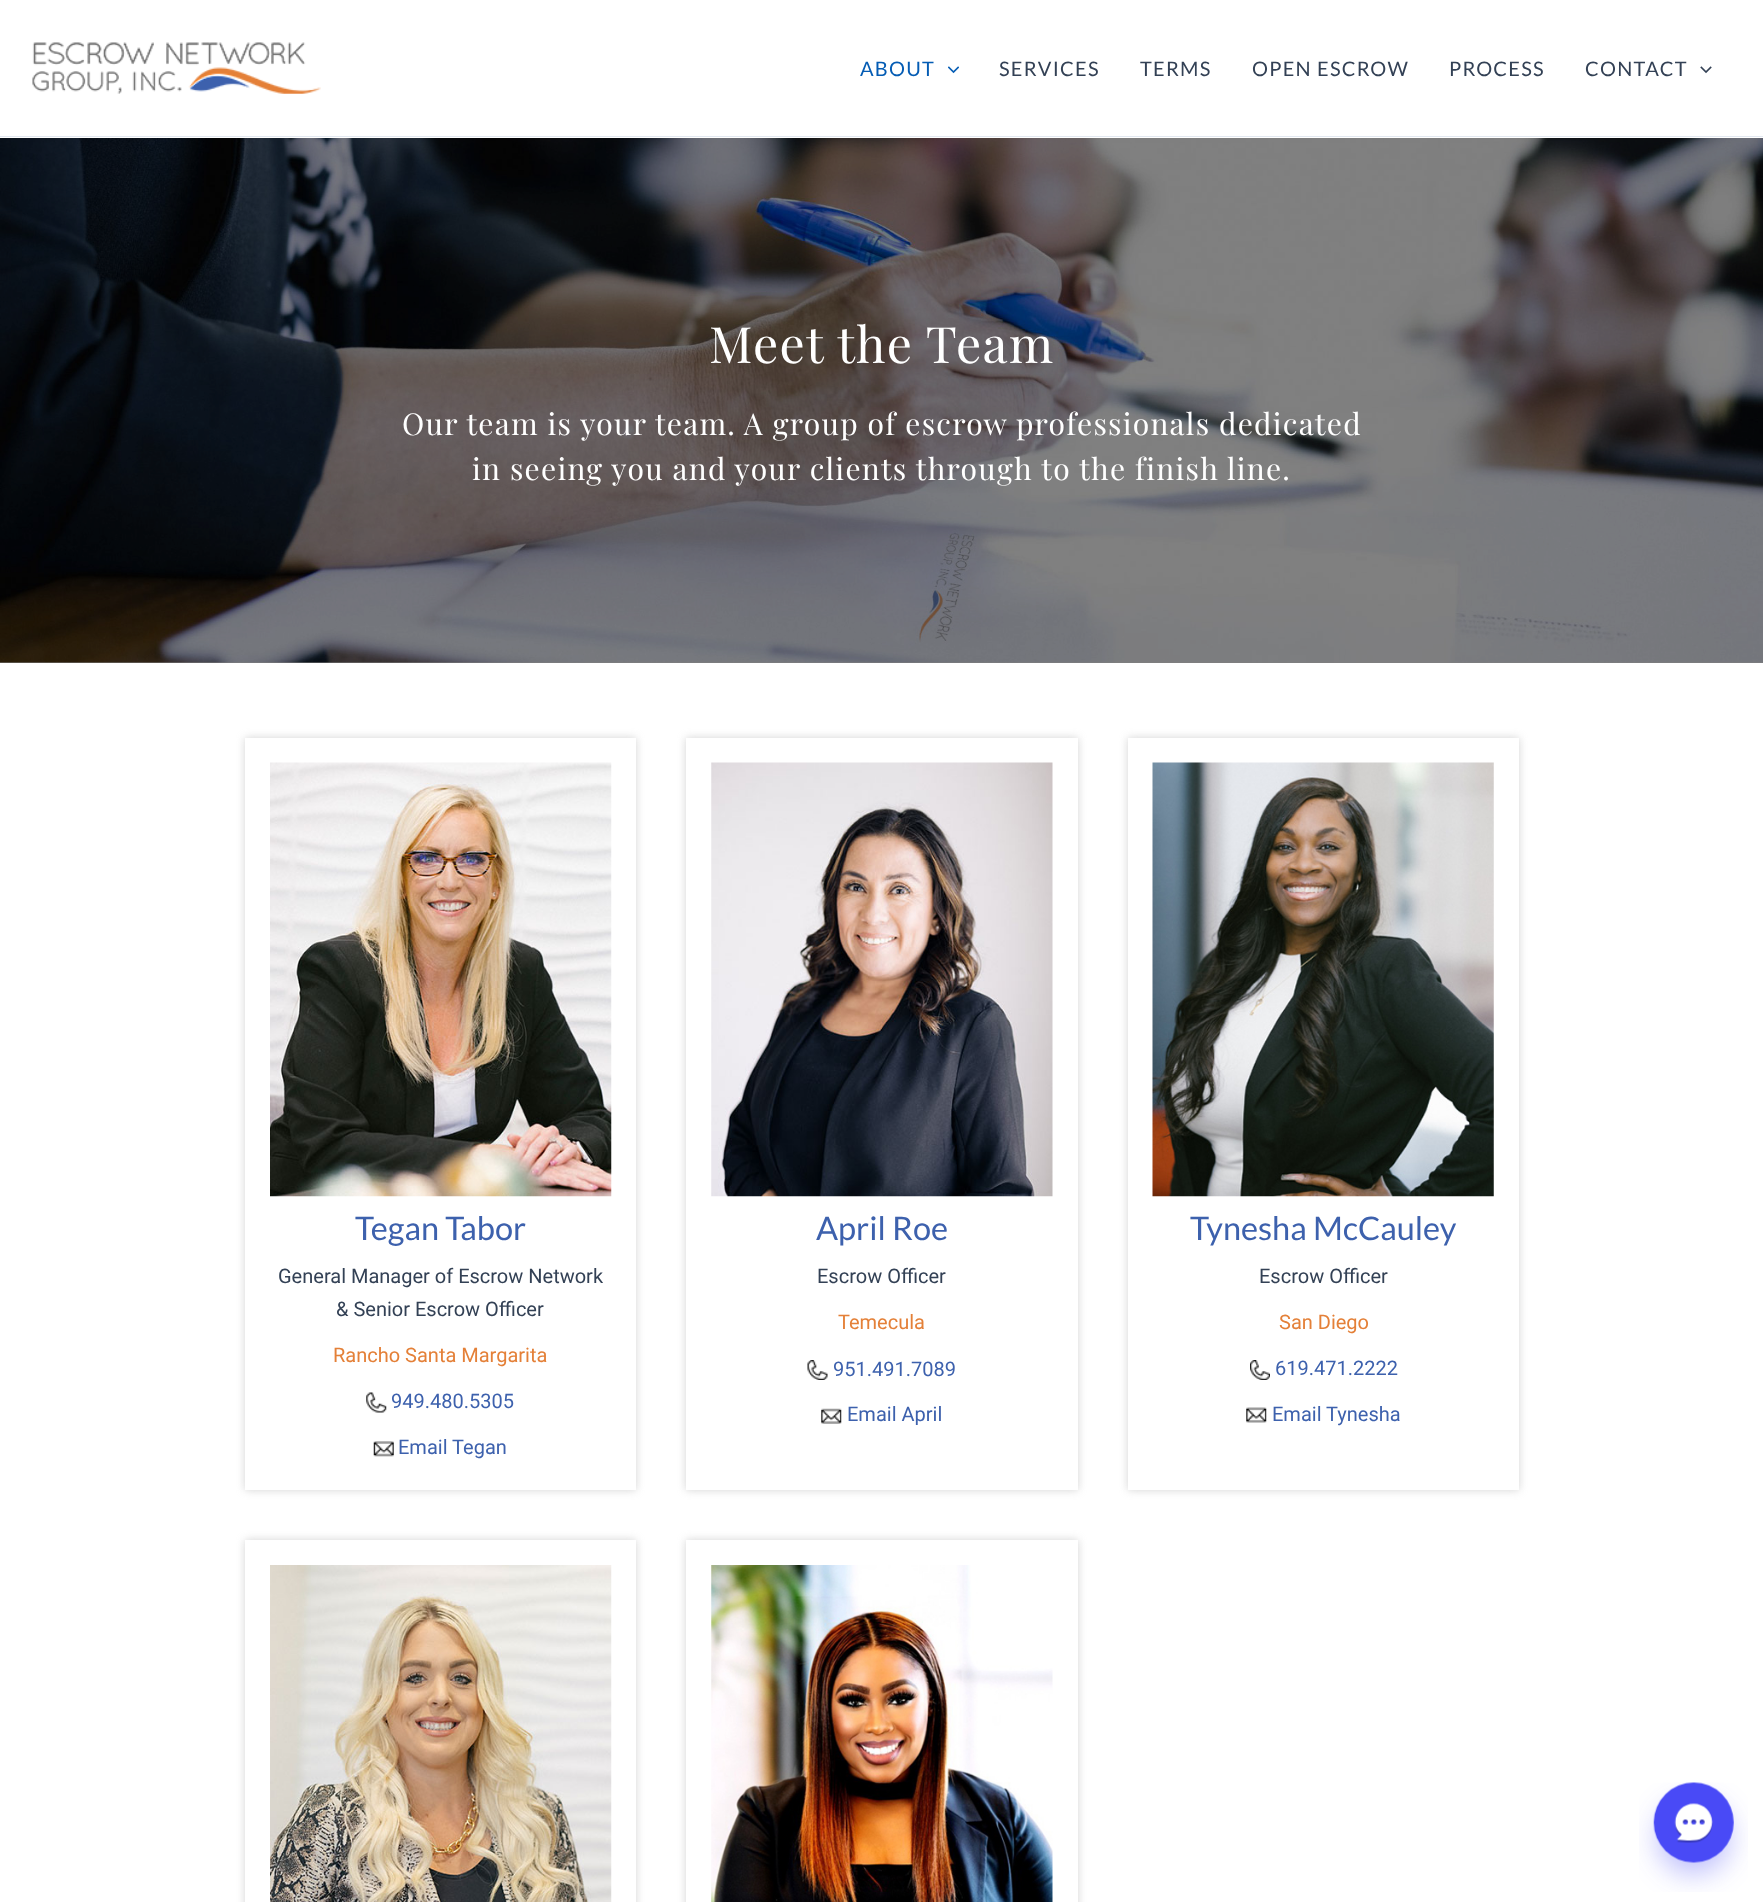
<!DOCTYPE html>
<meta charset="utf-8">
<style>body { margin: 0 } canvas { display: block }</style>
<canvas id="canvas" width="1763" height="1902"></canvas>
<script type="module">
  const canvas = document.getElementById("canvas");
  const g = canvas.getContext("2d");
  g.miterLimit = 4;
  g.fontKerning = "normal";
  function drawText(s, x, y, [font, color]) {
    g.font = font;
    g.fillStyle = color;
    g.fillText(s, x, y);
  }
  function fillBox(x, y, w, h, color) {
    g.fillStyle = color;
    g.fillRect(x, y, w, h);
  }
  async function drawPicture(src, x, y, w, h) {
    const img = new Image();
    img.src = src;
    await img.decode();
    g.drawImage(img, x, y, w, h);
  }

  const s1 = ["20px Lato", "#045CB4"];
  const s2 = ["20px Lato", "#334155"];
  const s3 = ["50px Playfair Display", "#FFFFFF"];
  const s4 = ["30px Playfair Display", "#FFFFFF"];
  const s5 = ["32.5px Lato", "#3D61AD"];
  const s6 = ["20px Roboto", "#334155"];
  const s7 = ["20px Roboto", "#E48038"];
  const s8 = ["20px Roboto", "#3D61AD"];

  fillBox(0, 0, 1763, 1902, "#FFFFFF");
  fillBox(0, 662, 1763, 1, "#808080");
  fillBox(0, 136, 1763, 1, "#E2E8F0");
  await drawPicture("pic1.png", 32, 42, 289, 52);
  g.letterSpacing = "1.25px";
  drawText("ABOUT", 860, 76, s1);
  await drawPicture("pic2.png", 948, 66, 11, 8);
  drawText("SERVICES", 999, 76, s2);
  drawText("TERMS", 1140, 76, s2);
  drawText("OPEN ESCROW", 1252, 76, s2);
  drawText("PROCESS", 1449, 76, s2);
  drawText("CONTACT", 1585, 76, s2);
  await drawPicture("pic3.png", 1700, 66, 12, 8);
  await drawPicture("pic4.png", 0, 138, 1763, 525);
  drawText("Meet the Team", 709, 363, s3);
  drawText("Our team is your team. A group of escrow professionals dedicated", 402, 435, s4);
  drawText("in seeing you and your clients through to the finish line.", 472, 480, s4);
  g.save();
  g.beginPath();
  g.moveTo(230, 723);
  g.lineTo(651, 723);
  g.lineTo(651, 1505);
  g.lineTo(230, 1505);
  g.closePath();
  g.moveTo(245, 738);
  g.lineTo(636, 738);
  g.lineTo(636, 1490);
  g.lineTo(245, 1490);
  g.closePath();
  g.clip("evenodd");
  g.fillStyle = "rgba(168, 168, 168, 0.5)";
  g.filter = "blur(4.5px)";
  g.beginPath();
  g.rect(245, 738, 391, 752);
  g.fill();
  g.filter = "none";
  g.restore();
  await drawPicture("pic5.png", 270, 762, 342, 435);
  g.letterSpacing = "0px";
  drawText("Tegan Tabor", 355, 1240, s5);
  drawText("General Manager of Escrow Network", 278, 1283, s6);
  drawText("& Senior Escrow Officer", 336, 1316, s6);
  drawText("Rancho Santa Margarita", 333, 1362, s7);
  await drawPicture("pic6.png", 366, 1392, 21, 21);
  drawText("949.480.5305", 391, 1408, s8);
  await drawPicture("pic7.png", 373, 1441, 21, 16);
  drawText("Email Tegan", 398, 1454, s8);
  g.save();
  g.beginPath();
  g.moveTo(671, 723);
  g.lineTo(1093, 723);
  g.lineTo(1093, 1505);
  g.lineTo(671, 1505);
  g.closePath();
  g.moveTo(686, 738);
  g.lineTo(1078, 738);
  g.lineTo(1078, 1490);
  g.lineTo(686, 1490);
  g.closePath();
  g.clip("evenodd");
  g.fillStyle = "rgba(168, 168, 168, 0.5)";
  g.filter = "blur(4.5px)";
  g.beginPath();
  g.rect(686, 738, 392, 752);
  g.fill();
  g.filter = "none";
  g.restore();
  await drawPicture("pic8.png", 711, 762, 342, 435);
  drawText("April Roe", 816, 1240, s5);
  drawText("Escrow Officer", 817, 1283, s6);
  drawText("Temecula", 838, 1329, s7);
  await drawPicture("pic9.png", 807, 1360, 21, 20);
  drawText("951.491.7089", 833, 1376, s8);
  await drawPicture("pic10.png", 821, 1408, 21, 16);
  drawText("Email April", 847, 1421, s8);
  g.save();
  g.beginPath();
  g.moveTo(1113, 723);
  g.lineTo(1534, 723);
  g.lineTo(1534, 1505);
  g.lineTo(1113, 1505);
  g.closePath();
  g.moveTo(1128, 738);
  g.lineTo(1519, 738);
  g.lineTo(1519, 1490);
  g.lineTo(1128, 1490);
  g.closePath();
  g.clip("evenodd");
  g.fillStyle = "rgba(168, 168, 168, 0.5)";
  g.filter = "blur(4.5px)";
  g.beginPath();
  g.rect(1128, 738, 391, 752);
  g.fill();
  g.filter = "none";
  g.restore();
  await drawPicture("pic11.png", 1152, 762, 342, 435);
  drawText("Tynesha McCauley", 1190, 1240, s5);
  drawText("Escrow Officer", 1259, 1283, s6);
  drawText("San Diego", 1279, 1329, s7);
  await drawPicture("pic12.png", 1250, 1360, 20, 20);
  drawText("619.471.2222", 1275, 1375, s8);
  await drawPicture("pic13.png", 1246, 1407, 21, 16);
  drawText("Email Tynesha", 1272, 1421, s8);
  g.save();
  g.beginPath();
  g.moveTo(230, 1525);
  g.lineTo(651, 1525);
  g.lineTo(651, 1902);
  g.lineTo(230, 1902);
  g.closePath();
  g.moveTo(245, 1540);
  g.lineTo(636, 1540);
  g.lineTo(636, 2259);
  g.lineTo(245, 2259);
  g.closePath();
  g.clip("evenodd");
  g.fillStyle = "rgba(168, 168, 168, 0.5)";
  g.filter = "blur(4.5px)";
  g.beginPath();
  g.rect(245, 1540, 391, 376);
  g.fill();
  g.filter = "none";
  g.restore();
  await drawPicture("pic14.png", 270, 1565, 342, 337);
  g.save();
  g.beginPath();
  g.moveTo(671, 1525);
  g.lineTo(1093, 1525);
  g.lineTo(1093, 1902);
  g.lineTo(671, 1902);
  g.closePath();
  g.moveTo(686, 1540);
  g.lineTo(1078, 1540);
  g.lineTo(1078, 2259);
  g.lineTo(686, 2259);
  g.closePath();
  g.clip("evenodd");
  g.fillStyle = "rgba(168, 168, 168, 0.5)";
  g.filter = "blur(4.5px)";
  g.beginPath();
  g.rect(686, 1540, 392, 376);
  g.fill();
  g.filter = "none";
  g.restore();
  await drawPicture("pic15.png", 711, 1565, 342, 337);
  await drawPicture("pic16.png", 1639, 1782, 109, 110);
</script>
